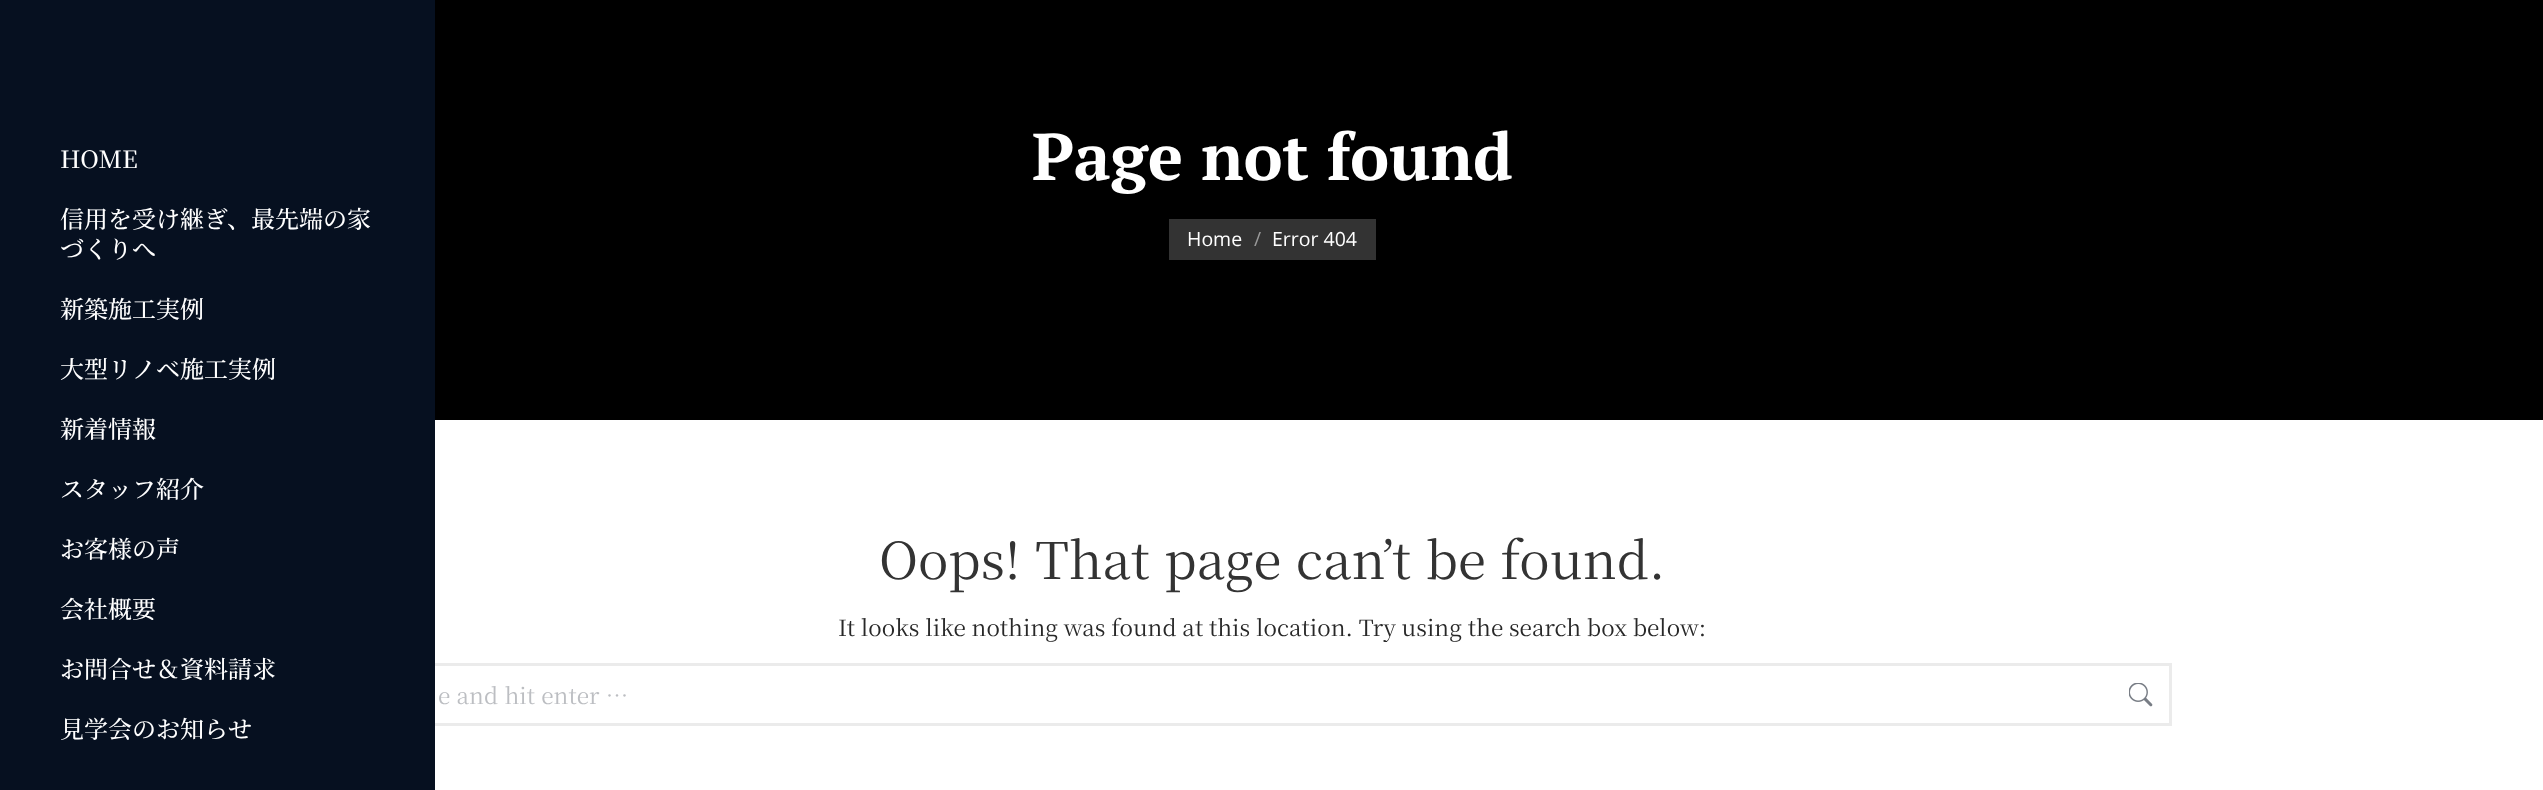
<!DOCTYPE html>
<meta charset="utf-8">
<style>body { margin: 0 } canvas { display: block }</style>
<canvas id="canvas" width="2543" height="790"></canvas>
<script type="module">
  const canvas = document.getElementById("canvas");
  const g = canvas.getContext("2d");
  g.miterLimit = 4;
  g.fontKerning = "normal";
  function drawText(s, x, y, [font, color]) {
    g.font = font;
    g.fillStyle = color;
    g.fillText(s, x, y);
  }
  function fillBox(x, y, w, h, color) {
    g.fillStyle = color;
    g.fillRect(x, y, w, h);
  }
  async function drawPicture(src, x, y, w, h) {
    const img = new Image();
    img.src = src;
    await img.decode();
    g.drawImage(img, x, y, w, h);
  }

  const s1 = ["500 24px Noto Serif JP", "#FFFFFF"];
  const s2 = ["bold 66px PT Serif", "#FFFFFF"];
  const s3 = ["19.5px Open Sans", "#FFFFFF"];
  const s4 = ["19.5px Open Sans", "#999999"];
  const s5 = ["51px Noto Serif JP", "#333333"];
  const s6 = ["22.5px Noto Serif JP", "#282828"];
  const s7 = ["22.5px Noto Serif JP", "#BCBEC2"];

  fillBox(0, 0, 2543, 790, "#FFFFFF");
  g.strokeStyle = "#EBEBEB";
  g.lineWidth = 3;
  g.strokeRect(373.5, 664.5, 1797, 60);
  fillBox(0, 0, 435, 790, "#061020");
  drawText("HOME", 60, 168, s1);
  drawText("信用を受け継ぎ、最先端の家", 60, 228, s1);
  drawText("づくりへ", 60, 258, s1);
  drawText("新築施工実例", 60, 318, s1);
  drawText("大型リノベ施工実例", 60, 378, s1);
  drawText("新着情報", 60, 438, s1);
  drawText("スタッフ紹介", 60, 498, s1);
  drawText("お客様の声", 60, 558, s1);
  drawText("会社概要", 60, 618, s1);
  drawText("お問合せ＆資料請求", 60, 678, s1);
  drawText("見学会のお知らせ", 60, 738, s1);
  fillBox(435, 0, 2108, 420, "#000000");
  drawText("Page not found", 1032, 180, s2);
  fillBox(1169, 219, 207, 41, "#333333");
  drawText("Home", 1187, 246, s3);
  drawText("/", 1254, 246, s4);
  drawText("Error 404", 1272, 246, s3);
  g.wordSpacing = "1.5px";
  drawText("Oops! That page can’t be found.", 879, 579, s5);
  g.wordSpacing = "0px";
  drawText("It looks like nothing was found at this location. Try using the search box below:", 838, 636, s6);
  g.wordSpacing = "0.5px";
  drawText("e and hit enter …", 438, 704, s7);
  await drawPicture("pic1.png", 2129, 683, 24, 24);
</script>
